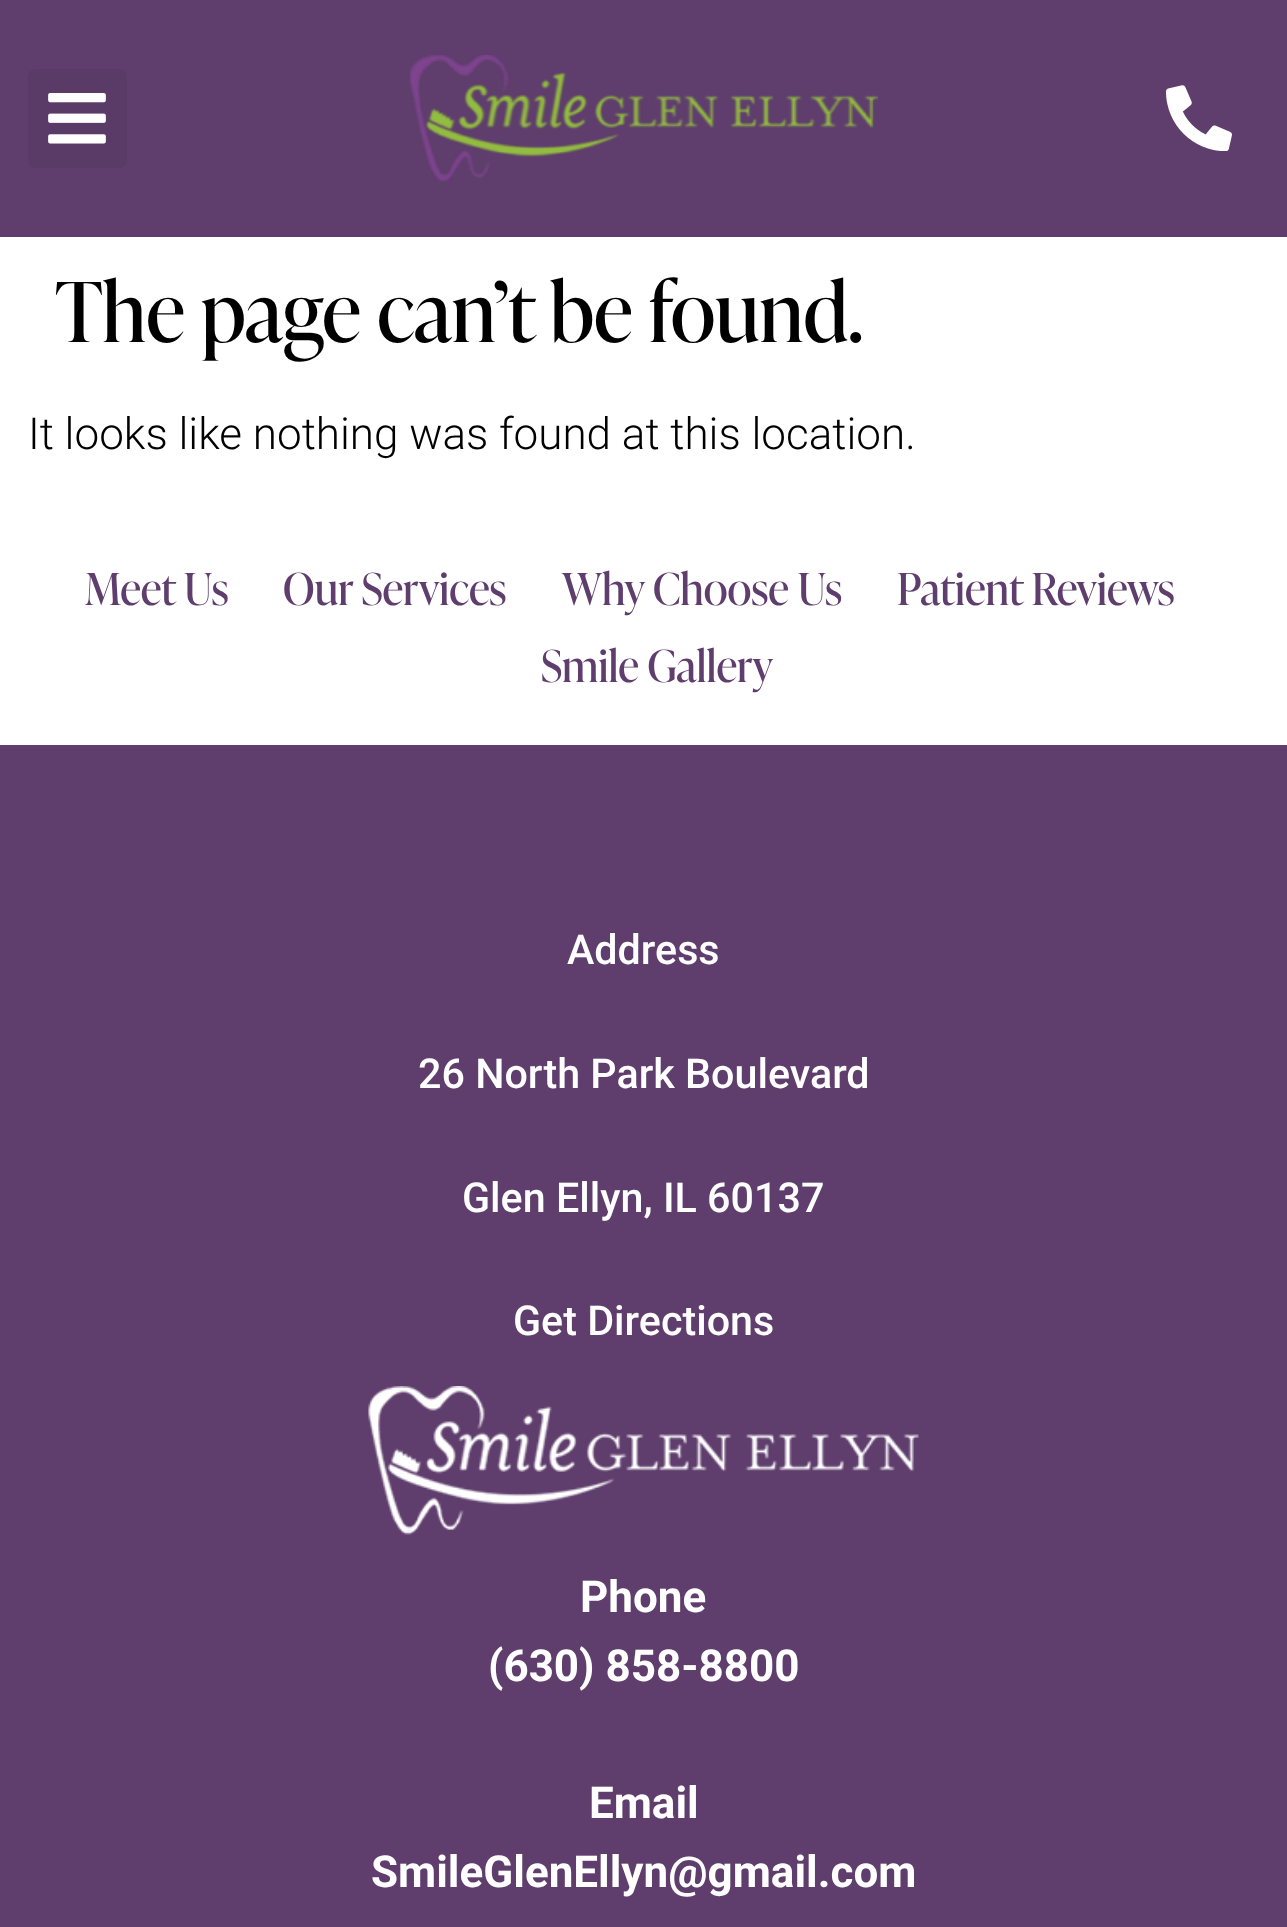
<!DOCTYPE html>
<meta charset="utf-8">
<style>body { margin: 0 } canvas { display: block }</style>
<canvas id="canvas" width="1287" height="1927"></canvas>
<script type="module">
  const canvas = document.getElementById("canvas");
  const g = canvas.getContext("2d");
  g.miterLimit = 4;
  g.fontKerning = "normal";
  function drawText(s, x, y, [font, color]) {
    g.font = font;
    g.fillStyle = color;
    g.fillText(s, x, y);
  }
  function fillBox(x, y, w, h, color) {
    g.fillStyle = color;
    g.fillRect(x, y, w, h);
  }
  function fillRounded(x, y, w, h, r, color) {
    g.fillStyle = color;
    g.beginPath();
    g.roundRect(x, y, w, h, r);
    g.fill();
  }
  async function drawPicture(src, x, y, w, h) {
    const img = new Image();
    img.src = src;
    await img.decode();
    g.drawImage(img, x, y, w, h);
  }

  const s1 = ["82.5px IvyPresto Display", "#000000"];
  const s2 = ["300 44px Roboto", "#000000"];
  const s3 = ["44px IvyPresto Display", "#5F3E6D"];
  const s4 = ["500 41.25px Roboto", "#FFFFFF"];
  const s5 = ["bold 44px Roboto", "#FFFFFF"];

  fillBox(0, 0, 1287, 1927, "#FFFFFF");
  fillBox(0, 0, 1287, 237, "#5F3E6D");
  fillRounded(28, 69, 99, 99, 8, "#5A3B68");
  await drawPicture("pic1.png", 48, 93, 58, 51);
  await drawPicture("pic2.png", 409, 55, 469, 127);
  await drawPicture("pic3.png", 1166, 85, 66, 66);
  drawText("The page can’t be found.", 55, 342, s1);
  drawText("It looks like nothing was found at this location.", 28, 449, s2);
  drawText("Meet Us", 85, 605, s3);
  drawText("Our Services", 283, 605, s3);
  drawText("Why Choose Us", 562, 605, s3);
  drawText("Patient Reviews", 897, 605, s3);
  drawText("Smile Gallery", 541, 682, s3);
  fillBox(0, 745, 1287, 1182, "#5F3E6D");
  drawText("Address", 567, 964, s4);
  drawText("26 North Park Boulevard", 418, 1088, s4);
  drawText("Glen Ellyn, IL 60137", 462, 1212, s4);
  drawText("Get Directions", 513, 1335, s4);
  await drawPicture("pic4.png", 368, 1386, 551, 149);
  drawText("Phone", 580, 1612, s5);
  drawText("(630) 858-8800", 488, 1681, s5);
  drawText("Email", 589, 1818, s5);
  drawText("SmileGlenEllyn@gmail.com", 371, 1887, s5);
</script>
